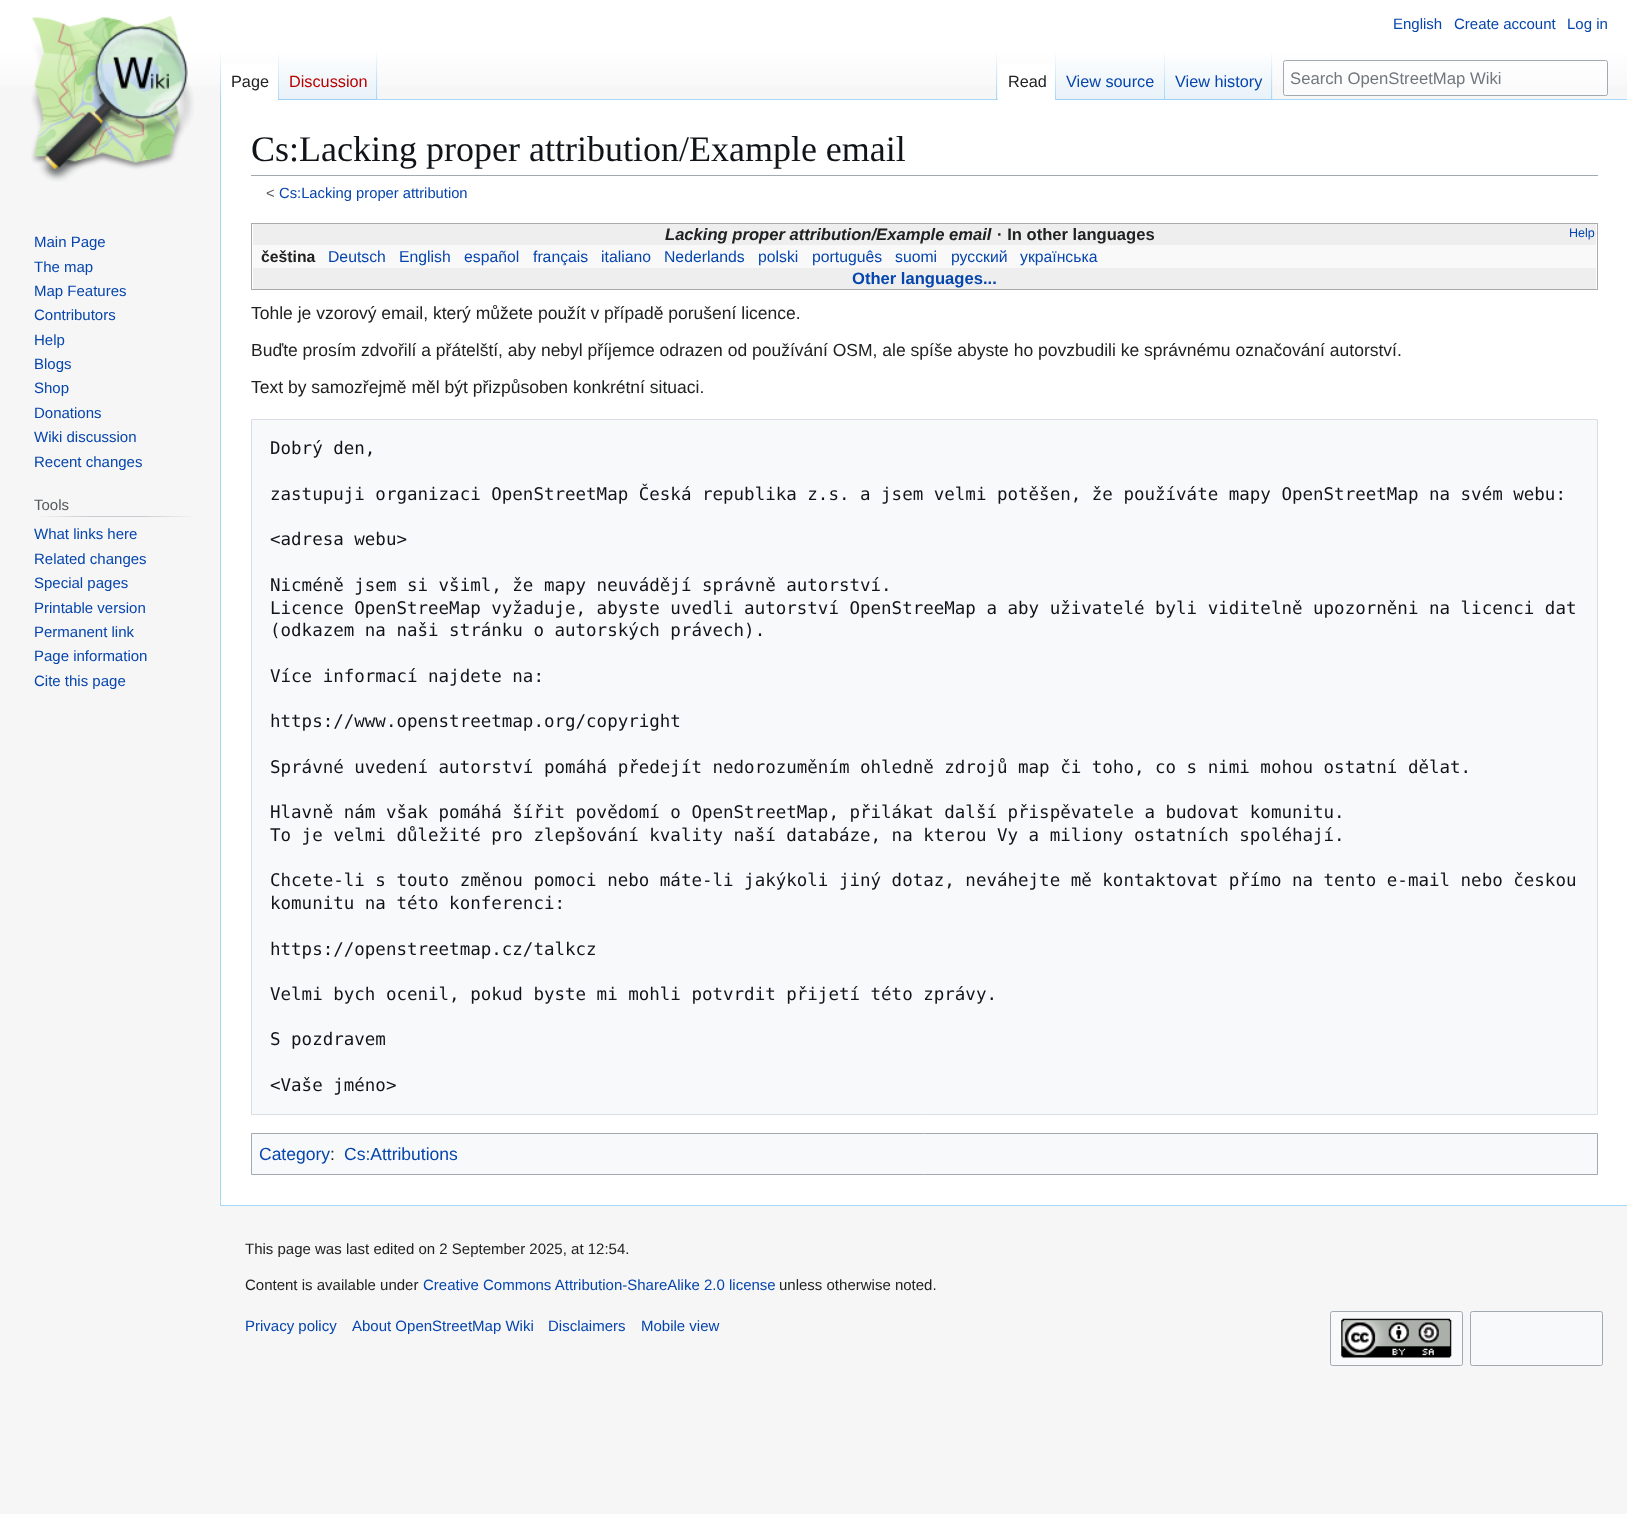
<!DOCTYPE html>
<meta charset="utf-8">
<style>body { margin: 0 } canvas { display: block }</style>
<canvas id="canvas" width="1627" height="1514"></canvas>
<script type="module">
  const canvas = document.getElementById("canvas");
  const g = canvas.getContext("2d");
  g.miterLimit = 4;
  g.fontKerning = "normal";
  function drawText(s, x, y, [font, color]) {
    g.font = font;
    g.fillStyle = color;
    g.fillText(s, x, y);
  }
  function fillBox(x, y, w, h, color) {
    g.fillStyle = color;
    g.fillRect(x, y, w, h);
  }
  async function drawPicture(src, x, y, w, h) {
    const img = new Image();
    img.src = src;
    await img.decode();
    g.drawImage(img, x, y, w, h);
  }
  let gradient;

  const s1 = ["15px Liberation Sans", "#0645AD"];
  const s2 = ["16.25px Liberation Sans", "#202122"];
  const s3 = ["16.25px Liberation Sans", "#BA0000"];
  const s4 = ["16.25px Liberation Sans", "#0645AD"];
  const s5 = ["16.7px Liberation Sans", "#72777D"];
  const s6 = ["15px Liberation Sans", "#54595D"];
  const s7 = ["36px Liberation Serif", "#101418"];
  const s8 = ["14.75px Liberation Sans", "#54595D"];
  const s9 = ["14.75px Liberation Sans", "#0645AD"];
  const s10 = ["italic bold 16.6px Liberation Sans", "#202122"];
  const s11 = ["bold 16.6px Liberation Sans", "#202122"];
  const s12 = ["12.5px Liberation Sans", "#0645AD"];
  const s13 = ["bold 15.75px Liberation Sans", "#202122"];
  const s14 = ["15.75px Liberation Sans", "#0645AD"];
  const s15 = ["bold 16.6px Liberation Sans", "#0645AD"];
  const s16 = ["17.5px Liberation Sans", "#202122"];
  const s17 = ["17.5px DejaVu Sans Mono", "#101418"];
  const s18 = ["17.5px Liberation Sans", "#0645AD"];
  const s19 = ["15px Liberation Sans", "#202122"];

  fillBox(0, 0, 1627, 1514, "#F6F6F6");
  gradient = g.createLinearGradient(814, 0, 814, 100);
  gradient.addColorStop(0.5, "#FFFFFF");
  gradient.addColorStop(1, "#F6F6F6");
  g.fillStyle = gradient;
  g.fillRect(0, 0, 1627, 86);
  drawText("English", 1393, 29, s1);
  drawText("Create account", 1454, 29, s1);
  drawText("Log in", 1567, 29, s1);
  fillBox(220, 1205, 1407, 1, "#A7D7F9");
  fillBox(220, 99, 1, 1107, "#A7D7F9");
  gradient = g.createLinearGradient(221, 50, 221, 100);
  gradient.addColorStop(0, "rgba(167, 215, 249, 0)");
  gradient.addColorStop(1, "#A7D7F9");
  g.fillStyle = gradient;
  g.fillRect(220, 50, 1, 50);
  fillBox(221, 64, 57, 36, "#FFFFFF");
  gradient = g.createLinearGradient(278, 50, 278, 100);
  gradient.addColorStop(0, "#FFFFFF");
  gradient.addColorStop(1, "#A7D7F9");
  g.fillStyle = gradient;
  g.fillRect(278, 50, 1, 50);
  drawText("Page", 231, 87, s2);
  gradient = g.createLinearGradient(328, 100, 328, 50);
  gradient.addColorStop(0, "#77C1F6");
  gradient.addColorStop(0.03, "#E8F2F8");
  gradient.addColorStop(1, "#FFFFFF");
  g.fillStyle = gradient;
  g.fillRect(279, 57, 99, 43);
  gradient = g.createLinearGradient(377, 50, 377, 100);
  gradient.addColorStop(0, "rgba(167, 215, 249, 0)");
  gradient.addColorStop(1, "#A7D7F9");
  g.fillStyle = gradient;
  g.fillRect(376, 50, 1, 50);
  drawText("Discussion", 289, 87, s3);
  fillBox(378, 99, 1249, 1, "#A7D7F9");
  gradient = g.createLinearGradient(997, 50, 997, 100);
  gradient.addColorStop(0, "rgba(167, 215, 249, 0)");
  gradient.addColorStop(1, "#A7D7F9");
  g.fillStyle = gradient;
  g.fillRect(996, 50, 1, 50);
  fillBox(998, 64, 57, 36, "#FFFFFF");
  gradient = g.createLinearGradient(1056, 50, 1056, 100);
  gradient.addColorStop(0, "#FFFFFF");
  gradient.addColorStop(1, "#A7D7F9");
  g.fillStyle = gradient;
  g.fillRect(1055, 50, 1, 50);
  drawText("Read", 1008, 87, s2);
  gradient = g.createLinearGradient(1111, 100, 1111, 50);
  gradient.addColorStop(0, "#77C1F6");
  gradient.addColorStop(0.03, "#E8F2F8");
  gradient.addColorStop(1, "#FFFFFF");
  g.fillStyle = gradient;
  g.fillRect(1056, 57, 109, 43);
  gradient = g.createLinearGradient(1164, 50, 1164, 100);
  gradient.addColorStop(0, "rgba(167, 215, 249, 0)");
  gradient.addColorStop(1, "#A7D7F9");
  g.fillStyle = gradient;
  g.fillRect(1164, 50, 1, 50);
  drawText("View source", 1066, 87, s4);
  gradient = g.createLinearGradient(1219, 100, 1219, 50);
  gradient.addColorStop(0, "#77C1F6");
  gradient.addColorStop(0.03, "#E8F2F8");
  gradient.addColorStop(1, "#FFFFFF");
  g.fillStyle = gradient;
  g.fillRect(1165, 57, 108, 43);
  gradient = g.createLinearGradient(1272, 50, 1272, 100);
  gradient.addColorStop(0, "rgba(167, 215, 249, 0)");
  gradient.addColorStop(1, "#A7D7F9");
  g.fillStyle = gradient;
  g.fillRect(1271, 50, 1, 50);
  drawText("View history", 1175, 87, s4);
  g.fillStyle = "rgba(255, 255, 255, 0.5)";
  g.beginPath();
  g.roundRect(1283.5, 60.5, 324, 35, 2);
  g.fill();
  g.strokeStyle = "#A2A9B1";
  g.stroke();
  drawText("Search OpenStreetMap Wiki", 1290, 84, s5);
  await drawPicture("pic1.png", 31, 16, 163, 166);
  drawText("Main Page", 34, 247, s1);
  drawText("The map", 34, 272, s1);
  drawText("Map Features", 34, 296, s1);
  drawText("Contributors", 34, 320, s1);
  drawText("Help", 34, 345, s1);
  drawText("Blogs", 34, 369, s1);
  drawText("Shop", 34, 393, s1);
  drawText("Donations", 34, 418, s1);
  drawText("Wiki discussion", 34, 442, s1);
  drawText("Recent changes", 34, 467, s1);
  gradient = g.createLinearGradient(34, 517, 198, 517);
  gradient.addColorStop(0, "#F6F6F6");
  gradient.addColorStop(0.33, "#C8CCD1");
  gradient.addColorStop(0.66, "#C8CCD1");
  gradient.addColorStop(1, "#F6F6F6");
  g.fillStyle = gradient;
  g.fillRect(34, 516, 164, 1);
  drawText("Tools", 34, 510, s6);
  drawText("What links here", 34, 539, s1);
  drawText("Related changes", 34, 564, s1);
  drawText("Special pages", 34, 588, s1);
  drawText("Printable version", 34, 613, s1);
  drawText("Permanent link", 34, 637, s1);
  drawText("Page information", 34, 661, s1);
  drawText("Cite this page", 34, 686, s1);
  fillBox(221, 100, 1406, 1105, "#FFFFFF");
  fillBox(251, 175, 1347, 1, "#A2A9B1");
  drawText("Cs:Lacking proper attribution/Example email", 251, 161, s7);
  drawText("<", 266, 198, s8);
  drawText("Cs:Lacking proper attribution", 279, 198, s9);
  g.strokeStyle = "#AAAAAA";
  g.strokeRect(251.5, 223.5, 1346, 66);
  fillBox(253, 224, 1343, 21, "#EEEEEE");
  drawText("Lacking proper attribution/Example email", 665, 240, s10);
  drawText("· In other languages", 997, 240, s11);
  drawText("Help", 1569, 237, s12);
  fillBox(253, 245, 1343, 23, "#F9F9F9");
  drawText("čeština", 261, 262, s13);
  drawText("Deutsch", 328, 262, s14);
  drawText("English", 399, 262, s14);
  drawText("español", 464, 262, s14);
  drawText("français", 533, 262, s14);
  drawText("italiano", 601, 262, s14);
  drawText("Nederlands", 664, 262, s14);
  drawText("polski", 758, 262, s14);
  drawText("português", 812, 262, s14);
  drawText("suomi", 895, 262, s14);
  drawText("русский", 951, 262, s14);
  drawText("українська", 1020, 262, s14);
  fillBox(253, 268, 1343, 21, "#EEEEEE");
  drawText("Other languages...", 852, 284, s15);
  drawText("Tohle je vzorový email, který můžete použít v případě porušení licence.", 251, 319, s16);
  drawText("Buďte prosím zdvořilí a přátelští, aby nebyl příjemce odrazen od používání OSM, ale spíše abyste ho povzbudili ke správnému označování autorství.", 251, 356, s16);
  drawText("Text by samozřejmě měl být přizpůsoben konkrétní situaci.", 251, 393, s16);
  g.fillStyle = "#F8F9FA";
  g.beginPath();
  g.rect(251.5, 419.5, 1346, 695);
  g.fill();
  g.strokeStyle = "#DADDE3";
  g.stroke();
  drawText("Dobrý den,", 270, 454, s17);
  drawText("zastupuji organizaci OpenStreetMap Česká republika z.s. a jsem velmi potěšen, že používáte mapy OpenStreetMap na svém webu:", 270, 500, s17);
  drawText("<adresa webu>", 270, 545, s17);
  drawText("Nicméně jsem si všiml, že mapy neuvádějí správně autorství.", 270, 591, s17);
  drawText("Licence OpenStreeMap vyžaduje, abyste uvedli autorství OpenStreeMap a aby uživatelé byli viditelně upozorněni na licenci dat", 270, 614, s17);
  drawText("(odkazem na naši stránku o autorských právech).", 270, 636, s17);
  drawText("Více informací najdete na:", 270, 682, s17);
  drawText("https://www.openstreetmap.org/copyright", 270, 727, s17);
  drawText("Správné uvedení autorství pomáhá předejít nedorozuměním ohledně zdrojů map či toho, co s nimi mohou ostatní dělat.", 270, 773, s17);
  drawText("Hlavně nám však pomáhá šířit povědomí o OpenStreetMap, přilákat další přispěvatele a budovat komunitu.", 270, 818, s17);
  drawText("To je velmi důležité pro zlepšování kvality naší databáze, na kterou Vy a miliony ostatních spoléhají.", 270, 841, s17);
  drawText("Chcete-li s touto změnou pomoci nebo máte-li jakýkoli jiný dotaz, neváhejte mě kontaktovat přímo na tento e-mail nebo českou", 270, 886, s17);
  drawText("komunitu na této konferenci:", 270, 909, s17);
  drawText("https://openstreetmap.cz/talkcz", 270, 955, s17);
  drawText("Velmi bych ocenil, pokud byste mi mohli potvrdit přijetí této zprávy.", 270, 1000, s17);
  drawText("S pozdravem", 270, 1045, s17);
  drawText("<Vaše jméno>", 270, 1091, s17);
  g.fillStyle = "#F8F9FA";
  g.beginPath();
  g.rect(251.5, 1133.5, 1346, 41);
  g.fill();
  g.strokeStyle = "#A2A9B1";
  g.stroke();
  drawText("Category", 259, 1160, s18);
  drawText(":", 330, 1160, s16);
  drawText("Cs:Attributions", 344, 1160, s18);
  drawText("This page was last edited on 2 September 2025, at 12:54.", 245, 1254, s19);
  drawText("Content is available under", 245, 1290, s19);
  drawText("Creative Commons Attribution-ShareAlike 2.0 license", 423, 1290, s1);
  drawText("unless otherwise noted.", 779, 1290, s19);
  drawText("Privacy policy", 245, 1331, s1);
  drawText("About OpenStreetMap Wiki", 352, 1331, s1);
  drawText("Disclaimers", 548, 1331, s1);
  drawText("Mobile view", 641, 1331, s1);
  g.fillStyle = "#F8F9FA";
  g.beginPath();
  g.roundRect(1330.5, 1311.5, 132, 54, 2);
  g.fill();
  g.stroke();
  await drawPicture("pic2.png", 1341, 1318, 111, 40);
  g.beginPath();
  g.roundRect(1470.5, 1311.5, 132, 54, 2);
  g.fill();
  g.stroke();
</script>
